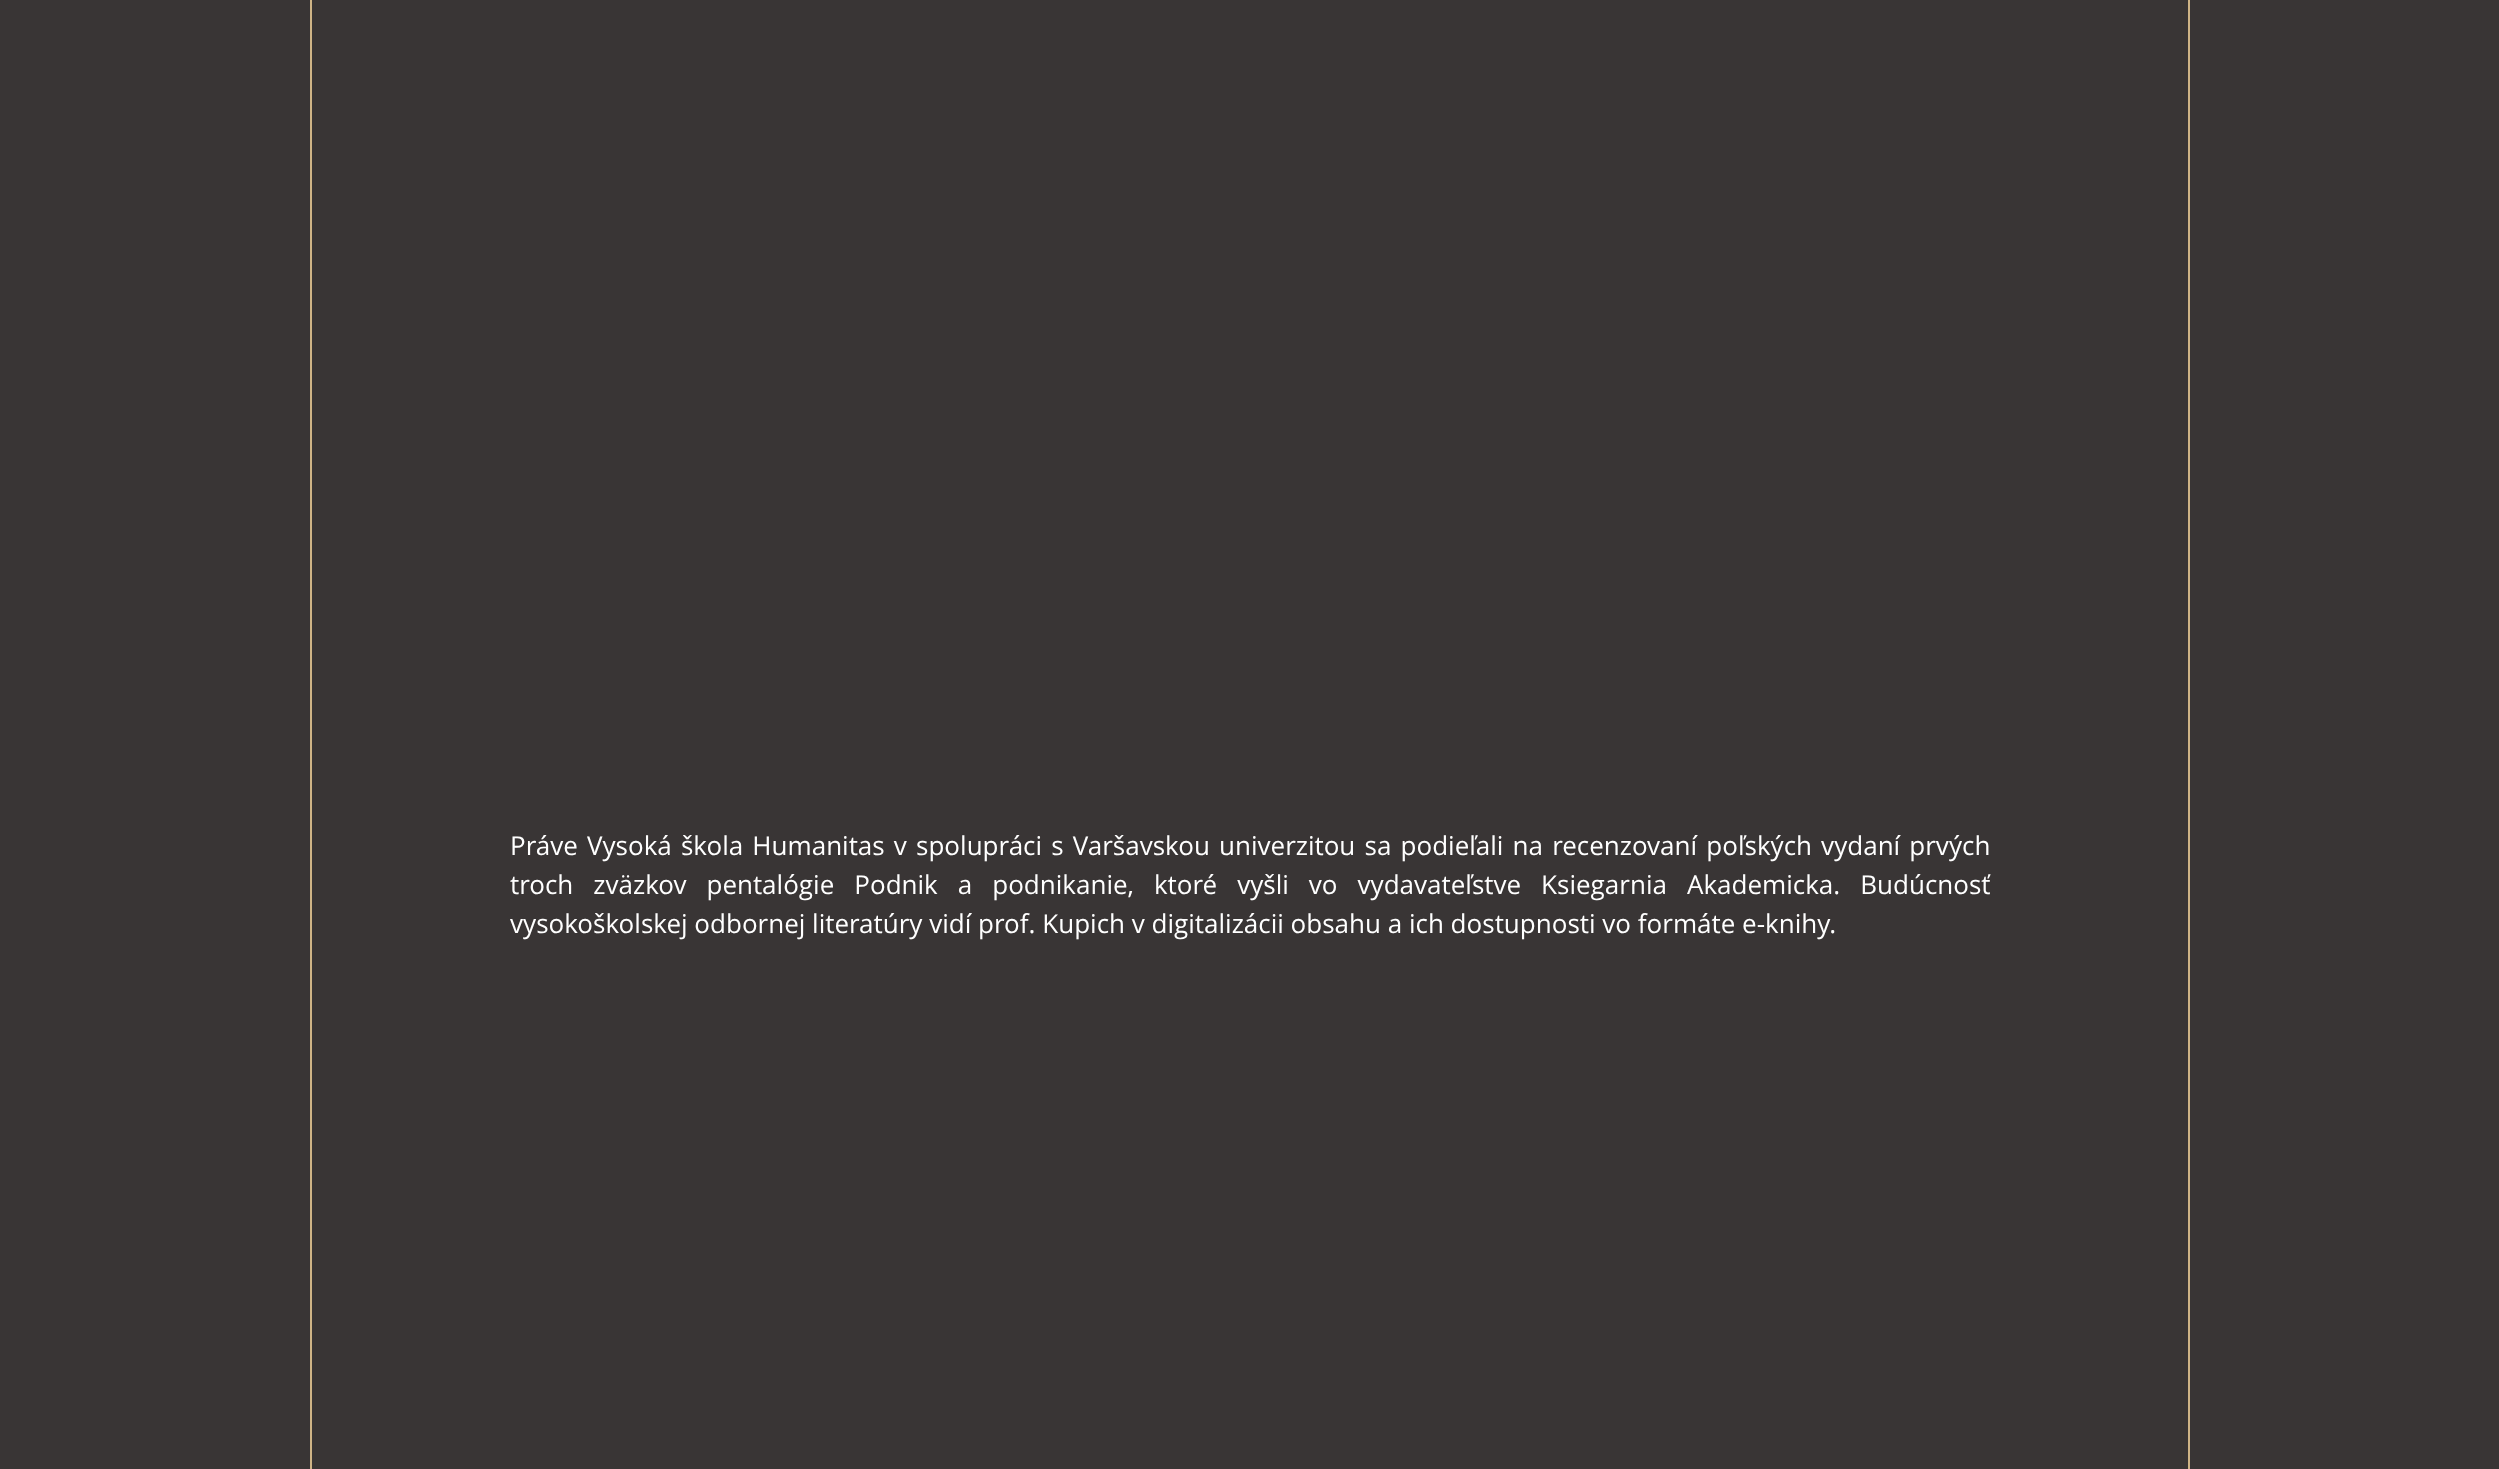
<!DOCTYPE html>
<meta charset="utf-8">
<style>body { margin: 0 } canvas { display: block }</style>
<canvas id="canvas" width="2499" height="1469"></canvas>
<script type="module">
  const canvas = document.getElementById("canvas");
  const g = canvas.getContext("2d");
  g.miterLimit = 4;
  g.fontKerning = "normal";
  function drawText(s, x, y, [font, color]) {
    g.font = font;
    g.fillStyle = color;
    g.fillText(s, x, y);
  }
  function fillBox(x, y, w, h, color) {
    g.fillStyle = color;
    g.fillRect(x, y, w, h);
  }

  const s1 = ["26px Open Sans", "#FFFFFF"];

  fillBox(0, 0, 2499, 1469, "#393535");
  g.strokeStyle = "#CFB486";
  g.lineWidth = 2;
  g.strokeRect(311, -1, 1878, 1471);
  g.wordSpacing = "2.4px";
  drawText("Práve Vysoká škola Humanitas v spolupráci s Varšavskou univerzitou sa podieľali na recenzovaní poľských vydaní prvých", 510, 855, s1);
  g.wordSpacing = "13.25px";
  drawText("troch zväzkov pentalógie Podnik a podnikanie, ktoré vyšli vo vydavateľstve Ksiegarnia Akademicka. Budúcnosť", 510, 894, s1);
  g.wordSpacing = "0px";
  drawText("vysokoškolskej odbornej literatúry vidí prof. Kupich v digitalizácii obsahu a ich dostupnosti vo formáte e-knihy.", 510, 933, s1);
</script>
